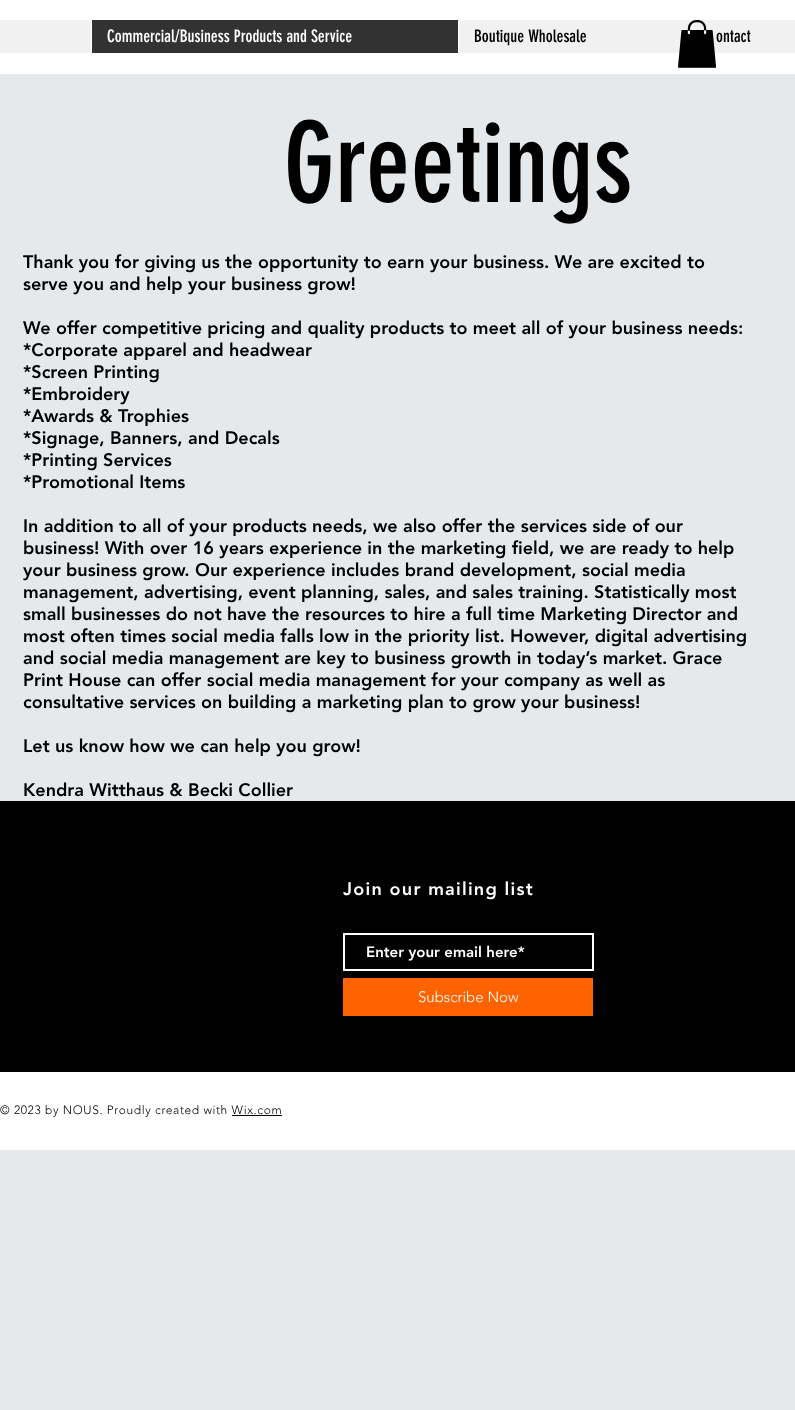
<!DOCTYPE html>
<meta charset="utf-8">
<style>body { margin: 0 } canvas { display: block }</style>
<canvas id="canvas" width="795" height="1410"></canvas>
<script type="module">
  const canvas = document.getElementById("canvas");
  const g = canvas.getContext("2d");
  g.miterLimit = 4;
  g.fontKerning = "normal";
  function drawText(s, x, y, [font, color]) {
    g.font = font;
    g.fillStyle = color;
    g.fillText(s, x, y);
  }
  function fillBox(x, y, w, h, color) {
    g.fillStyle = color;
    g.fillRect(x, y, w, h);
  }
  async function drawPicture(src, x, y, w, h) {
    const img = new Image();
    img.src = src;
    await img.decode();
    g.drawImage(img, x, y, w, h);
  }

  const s1 = ["17px 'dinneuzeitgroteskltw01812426'", "#000000"];
  const s2 = ["17px 'dinneuzeitgroteskltw01812426'", "#FFFFFF"];
  const s3 = ["110px 'dinneuzeitgroteskltw01812426'", "#000000"];
  const s4 = ["900 18px 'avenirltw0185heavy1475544'", "#000000"];
  const s5 = ["900 18px 'avenirltw0185heavy1475544'", "#FFFFFF"];
  const s6 = ["900 15px 'avenirltw0185heavy1475544'", "#FFFFFF"];
  const s7 = ["300 15px 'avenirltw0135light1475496'", "#FFFFFF"];
  const s8 = ["300 12px 'avenirltw0135light1475496'", "#000000"];

  fillBox(0, 0, 795, 1410, "#E6E9EB");
  fillBox(0, 0, 795, 74, "#FFFFFF");
  fillBox(0, 20, 795, 33, "#F1F1F1");
  fillBox(692, 20, 1, 10, "#FFFFFF");
  drawText("ontact", 716, 42, s1);
  await drawPicture("pic1.png", 678, 20, 39, 48);
  fillBox(92, 20, 366, 33, "#323232");
  fillBox(91, 20, 1, 33, "#FFFFFF");
  drawText("Commercial/Business Products and Service", 107, 42, s2);
  fillBox(458, 20, 1, 33, "#FFFFFF");
  drawText("Boutique Wholesale", 474, 42, s1);
  drawText("Greetings", 284, 202, s3);
  drawText("Thank you for giving us the opportunity to earn your business. We are excited to", 23, 268, s4);
  drawText("serve you and help your business grow!", 23, 290, s4);
  drawText("We offer competitive pricing and quality products to meet all of your business needs:", 23, 334, s4);
  drawText("*Corporate apparel and headwear", 23, 356, s4);
  drawText("*Screen Printing", 23, 378, s4);
  drawText("*Embroidery", 23, 400, s4);
  drawText("*Awards & Trophies", 23, 422, s4);
  drawText("*Signage, Banners, and Decals", 23, 444, s4);
  drawText("*Printing Services", 23, 466, s4);
  drawText("*Promotional Items", 23, 488, s4);
  drawText("In addition to all of your products needs, we also offer the services side of our", 23, 532, s4);
  drawText("business! With over 16 years experience in the marketing field, we are ready to help", 23, 554, s4);
  drawText("your business grow. Our experience includes brand development, social media", 23, 576, s4);
  drawText("management, advertising, event planning, sales, and sales training. Statistically most", 23, 598, s4);
  drawText("small businesses do not have the resources to hire a full time Marketing Director and", 23, 620, s4);
  drawText("most often times social media falls low in the priority list. However, digital advertising", 23, 642, s4);
  drawText("and social media management are key to business growth in today’s market. Grace", 23, 664, s4);
  drawText("Print House can offer social media management for your company as well as", 23, 686, s4);
  drawText("consultative services on building a marketing plan to grow your business!", 23, 708, s4);
  drawText("Let us know how we can help you grow!", 23, 752, s4);
  drawText("Kendra Witthaus & Becki Collier", 23, 796, s4);
  fillBox(0, 801, 795, 271, "#000000");
  g.letterSpacing = "1.25px";
  drawText("Join our mailing list", 343, 895, s5);
  g.strokeStyle = "#FFFFFF";
  g.lineWidth = 2;
  g.strokeRect(344, 934, 249, 36);
  g.letterSpacing = "0px";
  drawText("Enter your email here*", 366, 957, s6);
  fillBox(343, 978, 250, 38, "#FF6200");
  drawText("Subscribe Now", 418, 1002, s7);
  fillBox(0, 1072, 795, 78, "#FFFFFF");
  g.letterSpacing = "0.6px";
  drawText("© 2023 by NOUS. Proudly created with Wix.com", 0, 1114, s8);
  fillBox(232, 1115, 50, 1, "#000000");
</script>
